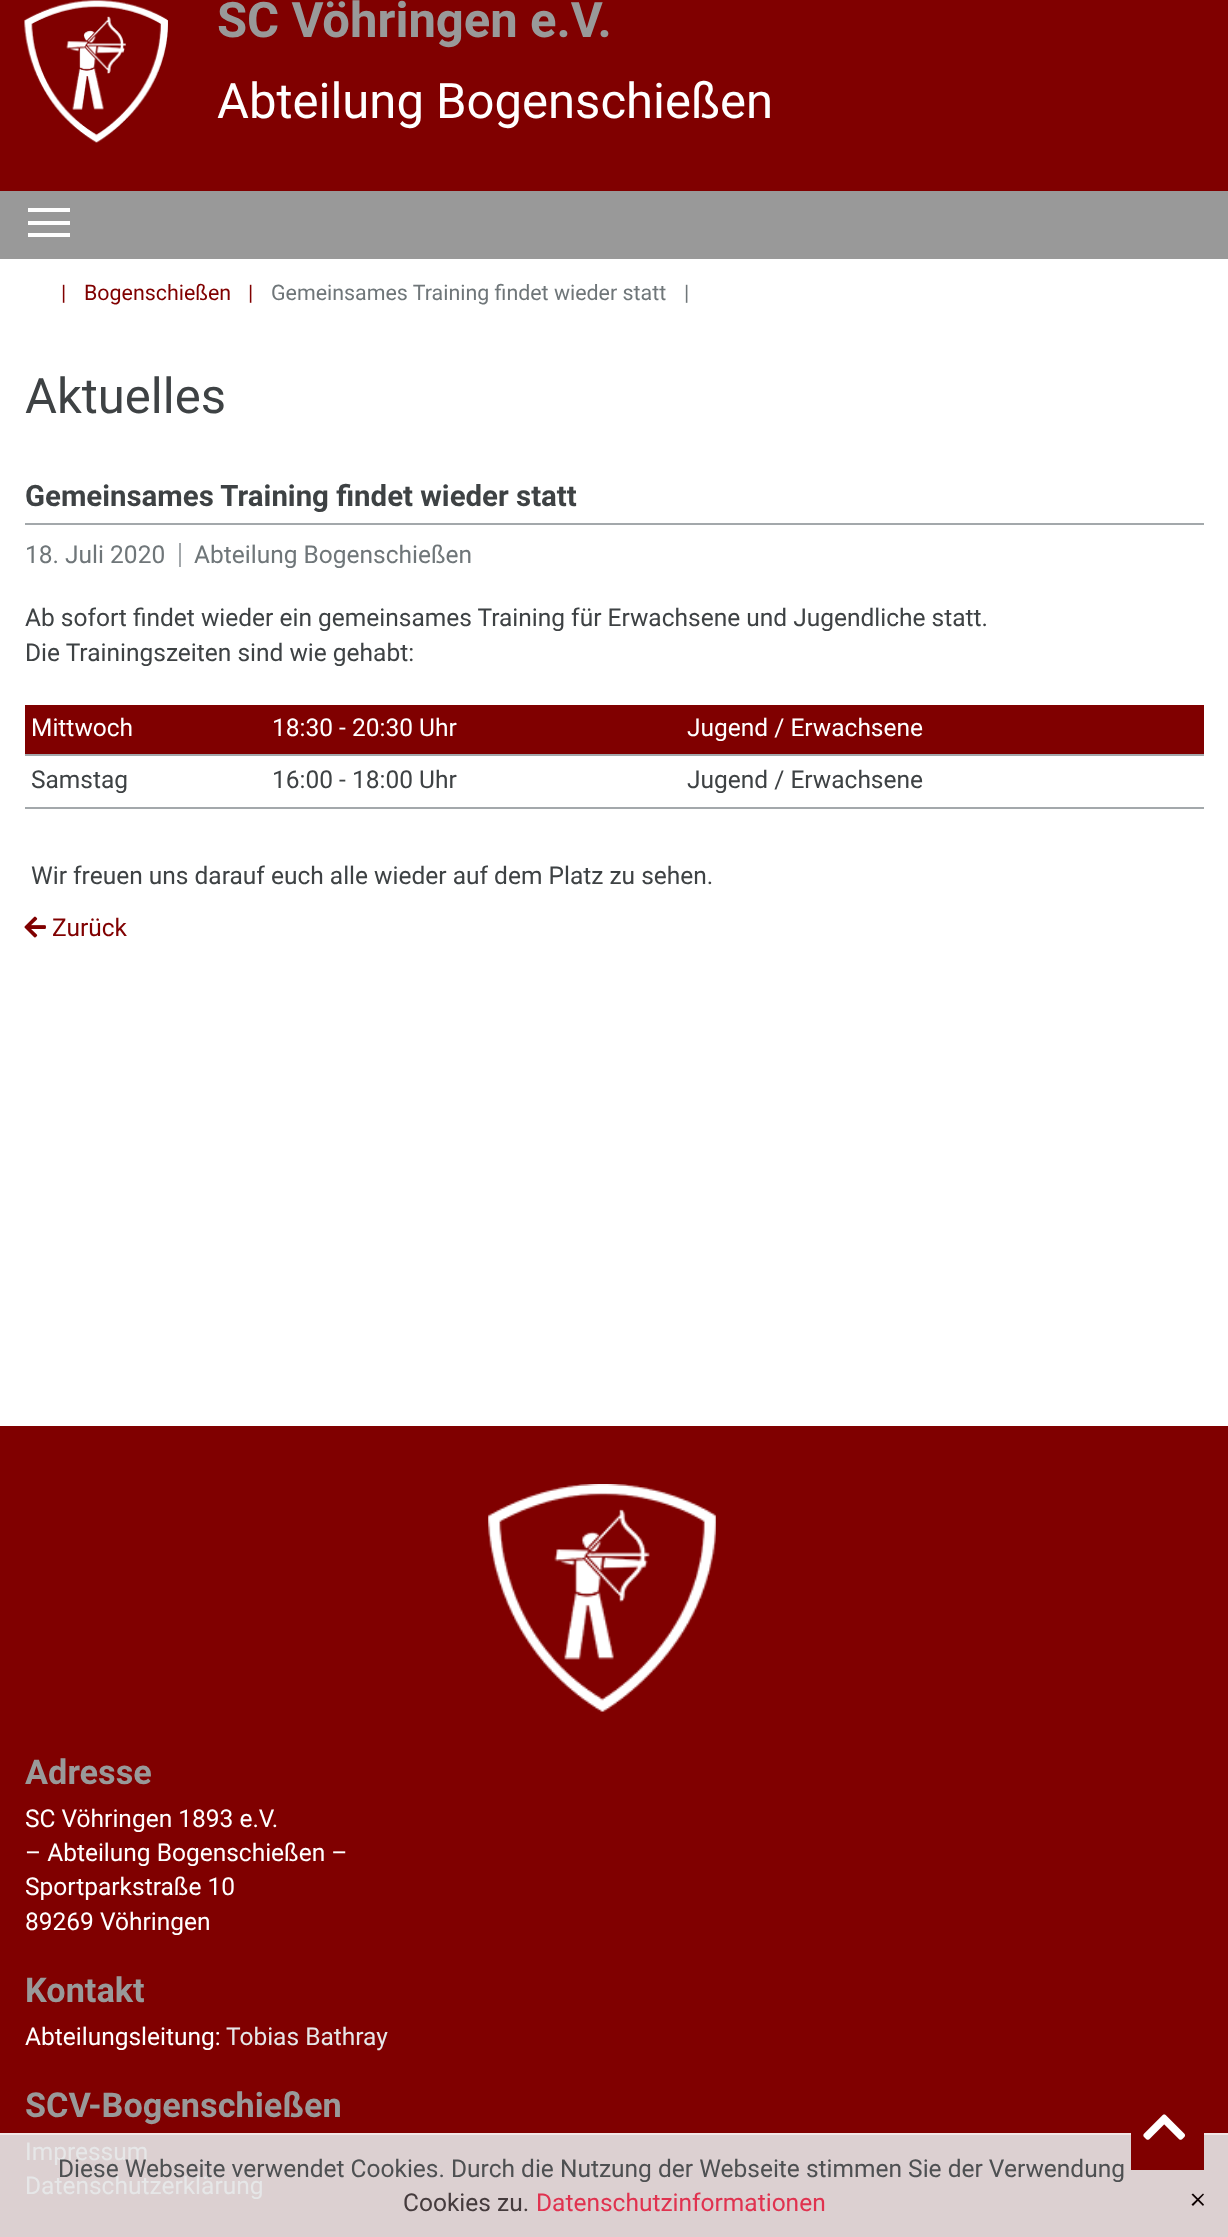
<!DOCTYPE html>
<meta charset="utf-8">
<style>body { margin: 0 } canvas { display: block }</style>
<canvas id="canvas" width="1228" height="2237"></canvas>
<script type="module">
  const canvas = document.getElementById("canvas");
  const g = canvas.getContext("2d");
  g.miterLimit = 4;
  g.fontKerning = "normal";
  function drawText(s, x, y, [font, color]) {
    g.font = font;
    g.fillStyle = color;
    g.fillText(s, x, y);
  }
  function fillBox(x, y, w, h, color) {
    g.fillStyle = color;
    g.fillRect(x, y, w, h);
  }
  async function drawPicture(src, x, y, w, h) {
    const img = new Image();
    img.src = src;
    await img.decode();
    g.drawImage(img, x, y, w, h);
  }

  const s1 = ["bold 49px Roboto", "#999999"];
  const s2 = ["49px Roboto", "#FFFFFF"];
  const s3 = ["21.4px Roboto", "#800000"];
  const s4 = ["21.4px Roboto", "#6F7679"];
  const s5 = ["49px Roboto", "#3E4244"];
  const s6 = ["bold 29.4px Roboto", "#3E4244"];
  const s7 = ["24.5px Roboto", "#6F7679"];
  const s8 = ["24.5px Roboto", "#3E4244"];
  const s9 = ["24.5px Roboto", "#FFFFFF"];
  const s10 = ["24.5px Roboto", "#800000"];
  const s11 = ["bold 34.25px Roboto", "#999999"];
  const s12 = ["24.5px Roboto", "#E6E7E8"];
  const s13 = ["24.5px Roboto", "#4E5052"];
  const s14 = ["24.5px Roboto", "#453B3D"];
  const s15 = ["24.5px Roboto", "#E0324F"];

  fillBox(0, 0, 1228, 2237, "#FFFFFF");
  fillBox(0, 0, 1228, 191, "#800000");
  await drawPicture("pic1.png", 24, 0, 144, 143);
  drawText("SC Vöhringen e.V.", 217, 37, s1);
  drawText("Abteilung Bogenschießen", 217, 118, s2);
  fillBox(0, 191, 1228, 68, "#999999");
  fillBox(28, 221, 42, 4, "#FFFFFF");
  fillBox(28, 208, 42, 4, "#FFFFFF");
  fillBox(28, 233, 42, 4, "#FFFFFF");
  drawText("|", 61, 300, s3);
  drawText("Bogenschießen", 84, 300, s3);
  drawText("|", 248, 300, s3);
  drawText("Gemeinsames Training findet wieder statt", 271, 300, s4);
  drawText("|", 684, 300, s4);
  drawText("Aktuelles", 25, 413, s5);
  drawText("Gemeinsames Training findet wieder statt", 25, 506, s6);
  fillBox(25, 523, 1179, 2, "#A3A8AB");
  fillBox(179, 543, 2, 24, "#A3A8AB");
  drawText("18. Juli 2020", 25, 563, s7);
  drawText("Abteilung Bogenschießen", 194, 563, s7);
  drawText("Ab sofort findet wieder ein gemeinsames Training für Erwachsene und Jugendliche statt.", 25, 626, s8);
  drawText("Die Trainingszeiten sind wie gehabt:", 25, 661, s8);
  fillBox(25, 705, 1179, 49, "#800000");
  drawText("Mittwoch", 31, 736, s9);
  drawText("18:30 - 20:30 Uhr", 272, 736, s9);
  fillBox(25, 754, 1179, 2, "#A3A8AB");
  drawText("Jugend / Erwachsene", 687, 736, s9);
  drawText("Samstag", 31, 788, s8);
  drawText("16:00 - 18:00 Uhr", 272, 788, s8);
  fillBox(25, 807, 1179, 2, "#A3A8AB");
  drawText("Jugend / Erwachsene", 687, 788, s8);
  drawText("Wir freuen uns darauf euch alle wieder auf dem Platz zu sehen.", 31, 884, s8);
  await drawPicture("pic2.png", 24, 916, 22, 22);
  drawText("Zurück", 52, 936, s10);
  fillBox(0, 2135, 1228, 102, "#DCD0D1");
  fillBox(0, 2133, 1228, 2, "#F2E6E6");
  fillBox(1131, 2133, 73, 37, "#800000");
  fillBox(0, 1426, 1228, 707, "#800000");
  await drawPicture("pic3.png", 1143, 2114, 42, 26);
  await drawPicture("pic4.png", 488, 1484, 228, 228);
  drawText("Adresse", 25, 1784, s11);
  drawText("SC Vöhringen 1893 e.V.", 25, 1827, s9);
  drawText("– Abteilung Bogenschießen –", 25, 1861, s9);
  drawText("Sportparkstraße 10", 25, 1895, s9);
  drawText("89269 Vöhringen", 25, 1930, s9);
  drawText("Kontakt", 25, 2002, s11);
  drawText("Abteilungsleitung:", 25, 2045, s9);
  drawText("Tobias Bathray", 226, 2045, s12);
  drawText("SCV-Bogenschießen", 25, 2117, s11);
  drawText("Impressum", 25, 2160, s12);
  drawText("Datenschutzerklärung", 25, 2194, s12);
  drawText("Diese Webseite verwendet Cookies. Durch die Nutzung der Webseite stimmen Sie der Verwendung", 58, 2177, s13);
  drawText("Cookies zu.", 403, 2211, s14);
  drawText("Datenschutzinformationen", 536, 2211, s15);
  g.fillStyle = "#0D0000";
  g.beginPath();
  g.moveTo(1191.5, 2194.5);
  g.lineTo(1193, 2193.5);
  g.lineTo(1204, 2204.5);
  g.lineTo(1203, 2206);
  g.closePath();
  g.fill();
  g.beginPath();
  g.moveTo(1203, 2193.5);
  g.lineTo(1204, 2194.5);
  g.lineTo(1193, 2206);
  g.lineTo(1191.5, 2204.5);
  g.closePath();
  g.fill();
</script>
